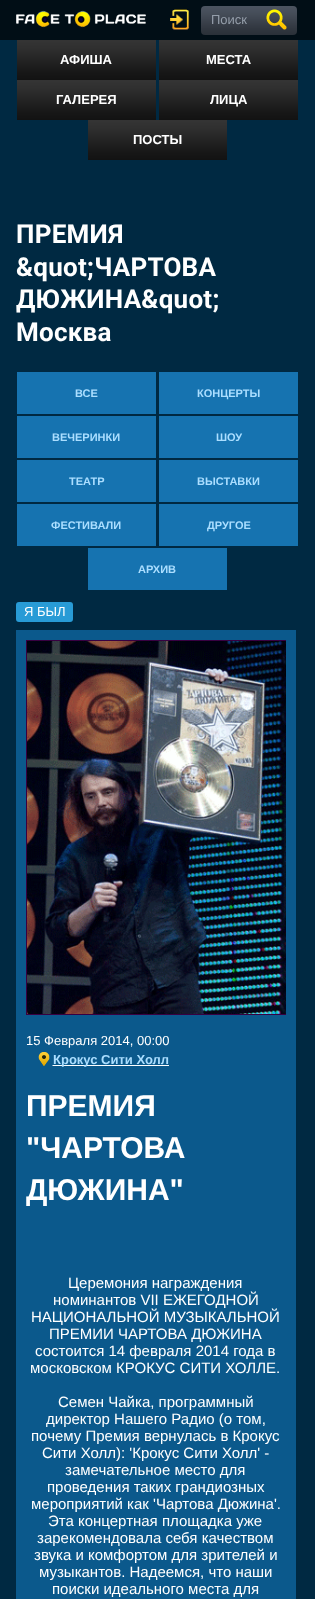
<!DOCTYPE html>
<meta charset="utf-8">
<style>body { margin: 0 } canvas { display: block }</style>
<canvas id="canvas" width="315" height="1599"></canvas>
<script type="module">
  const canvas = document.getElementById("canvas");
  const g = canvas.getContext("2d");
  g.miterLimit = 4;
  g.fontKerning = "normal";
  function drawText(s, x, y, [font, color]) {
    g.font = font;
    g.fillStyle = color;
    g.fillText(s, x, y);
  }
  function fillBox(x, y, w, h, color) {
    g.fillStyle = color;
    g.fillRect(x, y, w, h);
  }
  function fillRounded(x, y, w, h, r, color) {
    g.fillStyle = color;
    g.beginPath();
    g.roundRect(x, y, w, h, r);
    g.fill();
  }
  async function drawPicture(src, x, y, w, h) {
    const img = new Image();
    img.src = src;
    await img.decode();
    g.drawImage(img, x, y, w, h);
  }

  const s1 = ["13px Liberation Sans", "#959EAA"];
  const s2 = ["bold 13px Liberation Sans", "#FFFFFF"];
  const s3 = ["bold 26px Roboto", "#FFFFFF"];
  const s4 = ["bold 11px Liberation Sans", "#ABDEFF"];
  const s5 = ["13px Liberation Sans", "#FFFFFF"];
  const s6 = ["bold 13px Liberation Sans", "#ABDEFF"];
  const s7 = ["bold 30px Liberation Sans", "#FFFFFF"];
  const s8 = ["15px Liberation Sans", "#FFFFFF"];

  fillBox(0, 0, 315, 1599, "#002942");
  fillBox(0, 0, 315, 40, "#010E16");
  await drawPicture("pic1.png", 16, 10, 130, 18);
  await drawPicture("pic2.png", 170, 9, 19, 21);
  await drawPicture("pic3.png", 201, 6, 96, 29);
  drawText("Поиск", 211, 24, s1);
  await drawPicture("pic4.png", 266, 9, 21, 21);
  await drawPicture("pic5.png", 17, 40, 139, 40);
  drawText("АФИША", 60, 64, s2);
  await drawPicture("pic5.png", 159, 40, 139, 40);
  drawText("МЕСТА", 206, 64, s2);
  await drawPicture("pic5.png", 17, 80, 139, 40);
  drawText("ГАЛЕРЕЯ", 56, 104, s2);
  await drawPicture("pic5.png", 159, 80, 139, 40);
  drawText("ЛИЦА", 210, 104, s2);
  await drawPicture("pic5.png", 88, 120, 139, 40);
  drawText("ПОСТЫ", 133, 144, s2);
  g.letterSpacing = "0.25px";
  drawText("ПРЕМИЯ", 16, 243, s3);
  drawText("&quot;ЧАРТОВА", 16, 276, s3);
  drawText("ДЮЖИНА&quot;", 16, 308, s3);
  drawText("Москва", 16, 341, s3);
  fillBox(17, 372, 139, 42, "#1673B0");
  g.letterSpacing = "0px";
  drawText("ВСЕ", 75, 397, s4);
  fillBox(159, 372, 139, 42, "#1673B0");
  drawText("КОНЦЕРТЫ", 197, 397, s4);
  fillBox(17, 416, 139, 42, "#1673B0");
  drawText("ВЕЧЕРИНКИ", 52, 441, s4);
  fillBox(159, 416, 139, 42, "#1673B0");
  drawText("ШОУ", 216, 441, s4);
  fillBox(17, 460, 139, 42, "#1673B0");
  drawText("ТЕАТР", 69, 485, s4);
  fillBox(159, 460, 139, 42, "#1673B0");
  drawText("ВЫСТАВКИ", 197, 485, s4);
  fillBox(17, 504, 139, 42, "#1673B0");
  drawText("ФЕСТИВАЛИ", 51, 529, s4);
  fillBox(159, 504, 139, 42, "#1673B0");
  drawText("ДРУГОЕ", 207, 529, s4);
  fillBox(88, 548, 139, 42, "#1673B0");
  drawText("АРХИВ", 138, 573, s4);
  fillRounded(16, 602, 57, 20, 3, "#289BD6");
  drawText("Я БЫЛ", 24, 616, s5);
  fillBox(16, 630, 280, 969, "#0B598C");
  g.save();
  g.beginPath();
  g.rect(26, 640, 260, 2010);
  g.clip();
  g.strokeStyle = "#380041";
  g.strokeRect(26.5, 640.5, 261, 374);
  g.restore();
  await drawPicture("pic6.png", 27, 641, 259, 373);
  drawText("15 Февраля 2014, 00:00", 26, 1045, s5);
  await drawPicture("pic7.png", 38, 1052, 15, 14);
  fillBox(53, 1065, 116, 1, "#FEFEFE");
  drawText("Крокус Сити Холл", 53, 1064, s6);
  drawText("ПРЕМИЯ", 26, 1116, s7);
  drawText("\"ЧАРТОВА", 26, 1158, s7);
  g.save();
  g.beginPath();
  g.rect(26, 640, 260, 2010);
  g.clip();
  drawText("ДЮЖИНА\"", 26, 1200, s7);
  g.restore();
  drawText("Церемония награждения", 68, 1288, s8);
  drawText("номинантов VII ЕЖЕГОДНОЙ", 53, 1305, s8);
  drawText("НАЦИОНАЛЬНОЙ МУЗЫКАЛЬНОЙ", 31, 1322, s8);
  drawText("ПРЕМИИ ЧАРТОВА ДЮЖИНА", 49, 1339, s8);
  drawText("состоится 14 февраля 2014 года в", 35, 1356, s8);
  drawText("московском КРОКУС СИТИ ХОЛЛЕ.", 30, 1373, s8);
  drawText("Семен Чайка, программный", 58, 1407, s8);
  drawText("директор Нашего Радио (о том,", 46, 1424, s8);
  drawText("почему Премия вернулась в Крокус", 31, 1441, s8);
  drawText("Сити Холл): 'Крокус Сити Холл' -", 42, 1458, s8);
  drawText("замечательное место для", 65, 1475, s8);
  drawText("проведения таких грандиозных", 47, 1492, s8);
  drawText("мероприятий как 'Чартова Дюжина'.", 31, 1509, s8);
  drawText("Эта концертная площадка уже", 48, 1526, s8);
  drawText("зарекомендовала себя качеством", 37, 1543, s8);
  drawText("звука и комфортом для зрителей и", 34, 1560, s8);
  drawText("музыкантов. Надеемся, что наши", 39, 1577, s8);
  drawText("поиски идеального места для", 52, 1594, s8);
</script>
